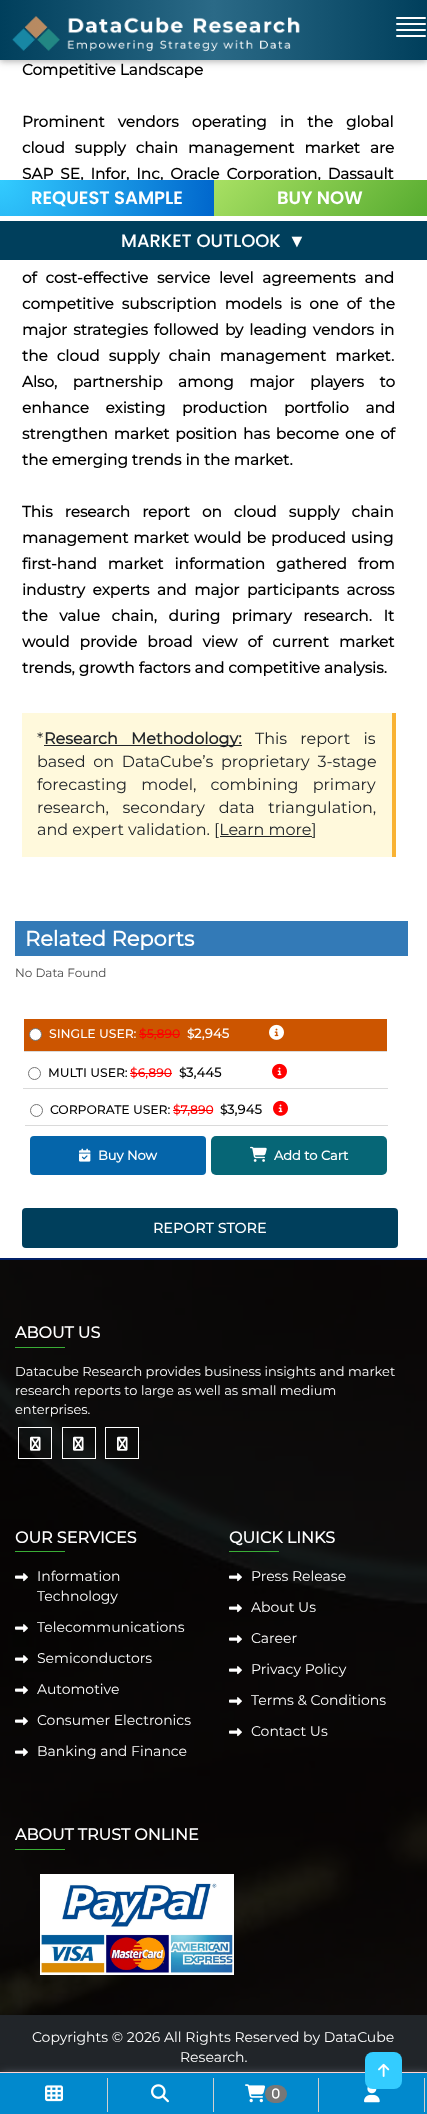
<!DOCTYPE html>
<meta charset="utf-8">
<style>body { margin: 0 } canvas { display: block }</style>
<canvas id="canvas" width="427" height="2114"></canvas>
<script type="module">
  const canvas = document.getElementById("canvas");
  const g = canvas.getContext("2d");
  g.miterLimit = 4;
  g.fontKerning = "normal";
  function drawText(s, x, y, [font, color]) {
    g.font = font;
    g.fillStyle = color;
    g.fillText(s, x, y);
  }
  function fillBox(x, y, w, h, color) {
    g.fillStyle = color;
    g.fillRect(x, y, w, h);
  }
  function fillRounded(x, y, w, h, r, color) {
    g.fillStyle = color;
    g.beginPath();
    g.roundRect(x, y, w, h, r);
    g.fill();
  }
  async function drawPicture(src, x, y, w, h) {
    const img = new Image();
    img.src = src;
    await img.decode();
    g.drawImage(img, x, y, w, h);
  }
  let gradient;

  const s1 = ["bold 15.3px Montserrat", "#000000"];
  const s2 = ["100 16px Montserrat", "#212529"];
  const s3 = ["bold 16px Montserrat", "#212529"];
  const s4 = ["bold 21px Montserrat", "#FFFFFF"];
  const s5 = ["100 12px Montserrat", "#4A4A4A"];
  const s6 = ["600 18px Poppins", "#FFFFFF"];
  const s7 = ["500 18px Poppins", "#FFFFFF"];
  const s8 = ["18px Liberation Sans", "#FFFFFF"];
  const s9 = ["bold 12px Montserrat", "#FFFFFF"];
  const s10 = ["bold 12px Montserrat", "#FF0000"];
  const s11 = ["bold 13px Montserrat", "#FFFFFF"];
  const s12 = ["bold 12px Montserrat", "#000000"];
  const s13 = ["bold 13px Montserrat", "#000000"];
  const s14 = ["bold 14px Montserrat", "#FFFFFF"];
  const s15 = ["bold 16px Montserrat", "#FFFFFF"];
  const s16 = ["100 13px Montserrat", "#FFFFFF"];
  const s17 = ["100 14px Montserrat", "#FFFFFF"];

  fillBox(0, 0, 427, 2114, "#FFFFFF");
  g.fillStyle = "rgba(0, 0, 0, 0.12)";
  g.filter = "blur(5px)";
  g.beginPath();
  g.rect(0, 2, 427, 60);
  g.fill();
  g.filter = "none";
  g.fillStyle = "rgba(0, 0, 0, 0.16)";
  g.filter = "blur(2.5px)";
  g.beginPath();
  g.rect(0, 2, 427, 60);
  g.fill();
  g.filter = "none";
  gradient = g.createLinearGradient(0, 30, 427, 30);
  gradient.addColorStop(0, "#003F5C");
  gradient.addColorStop(0.5, "#2B6A87");
  gradient.addColorStop(1, "#003F5C");
  g.fillStyle = gradient;
  g.fillRect(0, 0, 427, 60);
  await drawPicture("pic1.png", 12, 16, 288, 36);
  fillRounded(396, 17, 30, 2, 1, "#FFFFFF");
  fillRounded(396, 23, 30, 2, 1, "#FFFFFF");
  fillRounded(396, 29, 30, 2, 1, "#FFFFFF");
  fillRounded(396, 35, 30, 2, 1, "#FFFFFF");
  drawText("Competitive Landscape", 22, 75, s1);
  g.wordSpacing = "9px";
  drawText("Prominent vendors operating in the global", 22, 127, s1);
  g.wordSpacing = "6px";
  drawText("cloud supply chain management market are", 22, 153, s1);
  g.wordSpacing = "3px";
  drawText("SAP SE, Infor, Inc, Oracle Corporation, Dassault", 22, 179, s1);
  g.wordSpacing = "4.75px";
  drawText("of cost-effective service level agreements and", 22, 283, s1);
  g.wordSpacing = "4px";
  drawText("competitive subscription models is one of the", 22, 309, s1);
  g.wordSpacing = "2px";
  drawText("major strategies followed by leading vendors in", 22, 335, s1);
  g.wordSpacing = "5px";
  drawText("the cloud supply chain management market.", 22, 361, s1);
  g.wordSpacing = "11.5px";
  drawText("Also, partnership among major players to", 22, 387, s1);
  g.wordSpacing = "12.5px";
  drawText("enhance existing production portfolio and", 22, 413, s1);
  g.wordSpacing = "2px";
  drawText("strengthen market position has become one of", 22, 439, s1);
  g.wordSpacing = "0px";
  drawText("the emerging trends in the market.", 22, 465, s1);
  g.wordSpacing = "8px";
  drawText("This research report on cloud supply chain", 22, 517, s1);
  g.wordSpacing = "1px";
  drawText("management market would be produced using", 22, 543, s1);
  g.wordSpacing = "7px";
  drawText("first-hand market information gathered from", 22, 569, s1);
  g.wordSpacing = "3.5px";
  drawText("industry experts and major participants across", 22, 595, s1);
  g.wordSpacing = "7.5px";
  drawText("the value chain, during primary research. It", 22, 621, s1);
  g.wordSpacing = "6px";
  drawText("would provide broad view of current market", 22, 647, s1);
  g.wordSpacing = "0px";
  drawText("trends, growth factors and competitive analysis.", 22, 673, s1);
  fillBox(22, 713, 370, 144, "#FFF9DC");
  fillBox(392, 713, 4, 144, "#F9B233");
  drawText("*", 37, 744, s2);
  fillBox(44, 745, 198, 1, "#212529");
  g.wordSpacing = "9px";
  drawText("Research Methodology:", 44, 744, s3);
  drawText("This report is", 255, 744, s2);
  g.wordSpacing = "3.5px";
  drawText("based on DataCube’s proprietary 3-stage", 37, 767, s2);
  g.wordSpacing = "10px";
  drawText("forecasting model, combining primary", 37, 790, s2);
  g.wordSpacing = "9.5px";
  drawText("research, secondary data triangulation,", 37, 813, s2);
  g.wordSpacing = "0px";
  drawText("and expert validation. [Learn more]", 37, 835, s2);
  fillBox(220, 836, 92, 1, "#212529");
  fillBox(15, 921, 393, 35, "#337AB7");
  drawText("Related Reports", 25, 946, s4);
  drawText("No Data Found", 15, 977, s5);
  gradient = g.createRadialGradient(0, 180, 0, 0, 180, 217);
  gradient.addColorStop(0, "#33CCFF");
  gradient.addColorStop(1, "#0066CC");
  g.fillStyle = gradient;
  g.fillRect(0, 180, 214, 36);
  drawText("REQUEST SAMPLE", 31, 204, s6);
  gradient = g.createLinearGradient(258, 136, 383, 260);
  gradient.addColorStop(0, "#A8E063");
  gradient.addColorStop(1, "#56AB2F");
  g.fillStyle = gradient;
  g.fillRect(214, 180, 213, 36);
  drawText("BUY NOW", 277, 204, s6);
  fillBox(0, 221, 427, 39, "#003F5C");
  drawText("MARKET OUTLOOK", 121, 247, s7);
  drawText("▼", 288, 247, s8);
  fillBox(24, 1019, 363, 32, "#CC5500");
  fillBox(24, 1051, 363, 1, "#DADADA");
  g.fillStyle = "#FFFFFF";
  g.beginPath();
  g.arc(35.5, 1034.5, 6, 0, Math.PI * 2);
  g.fill();
  g.strokeStyle = "#767676";
  g.stroke();
  g.letterSpacing = "0.25px";
  drawText("SINGLE USER:", 49, 1038, s9);
  drawText("$5,890", 139, 1038, s10);
  fillBox(139, 1034, 41, 1, "#FF0000");
  drawText("$", 187, 1038, s9);
  drawText("2,945", 194, 1038, s11);
  await drawPicture("pic2.png", 269, 1024, 15, 16);
  fillBox(23, 1088, 365, 1, "#DADADA");
  g.beginPath();
  g.arc(34.5, 1073.5, 6, 0, Math.PI * 2);
  g.stroke();
  drawText("MULTI USER:", 48, 1077, s12);
  drawText("$6,890", 130, 1077, s10);
  fillBox(130, 1073, 42, 1, "#FF0000");
  drawText("$", 179, 1077, s12);
  drawText("3,445", 186, 1077, s13);
  await drawPicture("pic3.png", 272, 1063, 15, 16);
  fillBox(25, 1125, 363, 1, "#DADADA");
  g.beginPath();
  g.arc(36.5, 1110.5, 6, 0, Math.PI * 2);
  g.stroke();
  drawText("CORPORATE USER:", 50, 1114, s12);
  drawText("$7,890", 173, 1114, s10);
  fillBox(173, 1110, 40, 1, "#FF0000");
  drawText("$", 220, 1114, s12);
  drawText("3,945", 227, 1114, s13);
  await drawPicture("pic3.png", 273, 1100, 15, 16);
  fillRounded(30, 1136, 176, 39, 4, "#0565AA");
  await drawPicture("pic4.png", 79, 1148, 12, 14);
  g.letterSpacing = "0px";
  drawText("Buy Now", 98, 1160, s11);
  fillRounded(211, 1136, 176, 39, 5, "#066676");
  await drawPicture("pic5.png", 250, 1146, 17, 16);
  drawText("Add to Cart", 274, 1160, s11);
  fillRounded(22, 1208, 376, 40, 4, "#003F5C");
  g.letterSpacing = "0.25px";
  drawText("REPORT STORE", 153, 1233, s14);
  await drawPicture("pic6.png", 0, 1260, 427, 755);
  fillBox(0, 1258, 427, 2, "#012068");
  g.letterSpacing = "0px";
  drawText("ABOUT US", 15, 1338, s15);
  fillBox(15, 1347, 50, 1, "#3AAE36");
  drawText("Datacube Research provides business insights and market", 15, 1376, s16);
  drawText("research reports to large as well as small medium", 15, 1395, s16);
  drawText("enterprises.", 15, 1414, s16);
  g.strokeStyle = "#FFFFFF";
  g.strokeRect(18.5, 1427.5, 33, 31);
  await drawPicture("pic7.png", 30, 1436, 11, 15);
  g.strokeRect(62.5, 1427.5, 33, 31);
  await drawPicture("pic8.png", 73, 1436, 11, 15);
  g.strokeRect(105.5, 1427.5, 33, 31);
  await drawPicture("pic9.png", 117, 1436, 11, 15);
  drawText("OUR SERVICES", 15, 1543, s15);
  fillBox(15, 1551, 50, 1, "#3AAE36");
  await drawPicture("pic10.png", 15, 1573, 13, 9);
  drawText("Information", 37, 1581, s17);
  drawText("Technology", 37, 1601, s17);
  await drawPicture("pic11.png", 15, 1624, 13, 9);
  drawText("Telecommunications", 37, 1632, s17);
  await drawPicture("pic12.png", 15, 1655, 13, 9);
  drawText("Semiconductors", 37, 1663, s17);
  await drawPicture("pic13.png", 15, 1686, 13, 9);
  drawText("Automotive", 37, 1694, s17);
  await drawPicture("pic14.png", 15, 1717, 13, 9);
  drawText("Consumer Electronics", 37, 1725, s17);
  await drawPicture("pic15.png", 15, 1748, 13, 9);
  drawText("Banking and Finance", 37, 1756, s17);
  drawText("QUICK LINKS", 229, 1543, s15);
  fillBox(229, 1551, 50, 1, "#3AAE36");
  await drawPicture("pic16.png", 229, 1573, 13, 9);
  drawText("Press Release", 251, 1581, s17);
  await drawPicture("pic17.png", 229, 1604, 13, 9);
  drawText("About Us", 251, 1612, s17);
  await drawPicture("pic18.png", 229, 1635, 13, 9);
  drawText("Career", 251, 1643, s17);
  await drawPicture("pic19.png", 229, 1666, 13, 9);
  drawText("Privacy Policy", 251, 1674, s17);
  await drawPicture("pic20.png", 229, 1697, 13, 9);
  drawText("Terms & Conditions", 251, 1705, s17);
  await drawPicture("pic21.png", 229, 1728, 13, 9);
  drawText("Contact Us", 251, 1736, s17);
  drawText("ABOUT TRUST ONLINE", 15, 1840, s15);
  fillBox(15, 1849, 50, 1, "#3AAE36");
  await drawPicture("pic22.png", 40, 1874, 194, 101);
  fillBox(0, 2015, 427, 57, "#212529");
  drawText("Copyrights © 2026 All Rights Reserved by DataCube", 32, 2042, s17);
  drawText("Research.", 180, 2062, s17);
  g.fillStyle = "#6C757D";
  g.filter = "blur(5px)";
  g.beginPath();
  g.rect(1, 2074, 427, 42);
  g.fill();
  g.filter = "none";
  fillBox(0, 2073, 427, 41, "#0189CD");
  fillBox(0, 2072, 427, 1, "#FFD3D3");
  await drawPicture("pic28.png", 364, 2086, 16, 17);
  fillRounded(365, 2052, 37, 37, 8, "#33CCFF");
  await drawPicture("pic23.png", 378, 2063, 12, 14);
  fillBox(107, 2078, 1, 34, "#D0D0D0");
  await drawPicture("pic24.png", 45, 2085, 18, 17);
  fillBox(213, 2078, 1, 34, "#D0D0D0");
  await drawPicture("pic25.png", 151, 2084, 18, 19);
  fillBox(318, 2078, 1, 34, "#D0D0D0");
  fillRounded(265, 2085, 22, 18, 9, "#777777");
  await drawPicture("pic26.png", 245, 2084, 21, 19);
  await drawPicture("pic27.png", 272, 2088, 8, 11);
  fillBox(424, 2078, 1, 34, "#D0D0D0");
</script>
